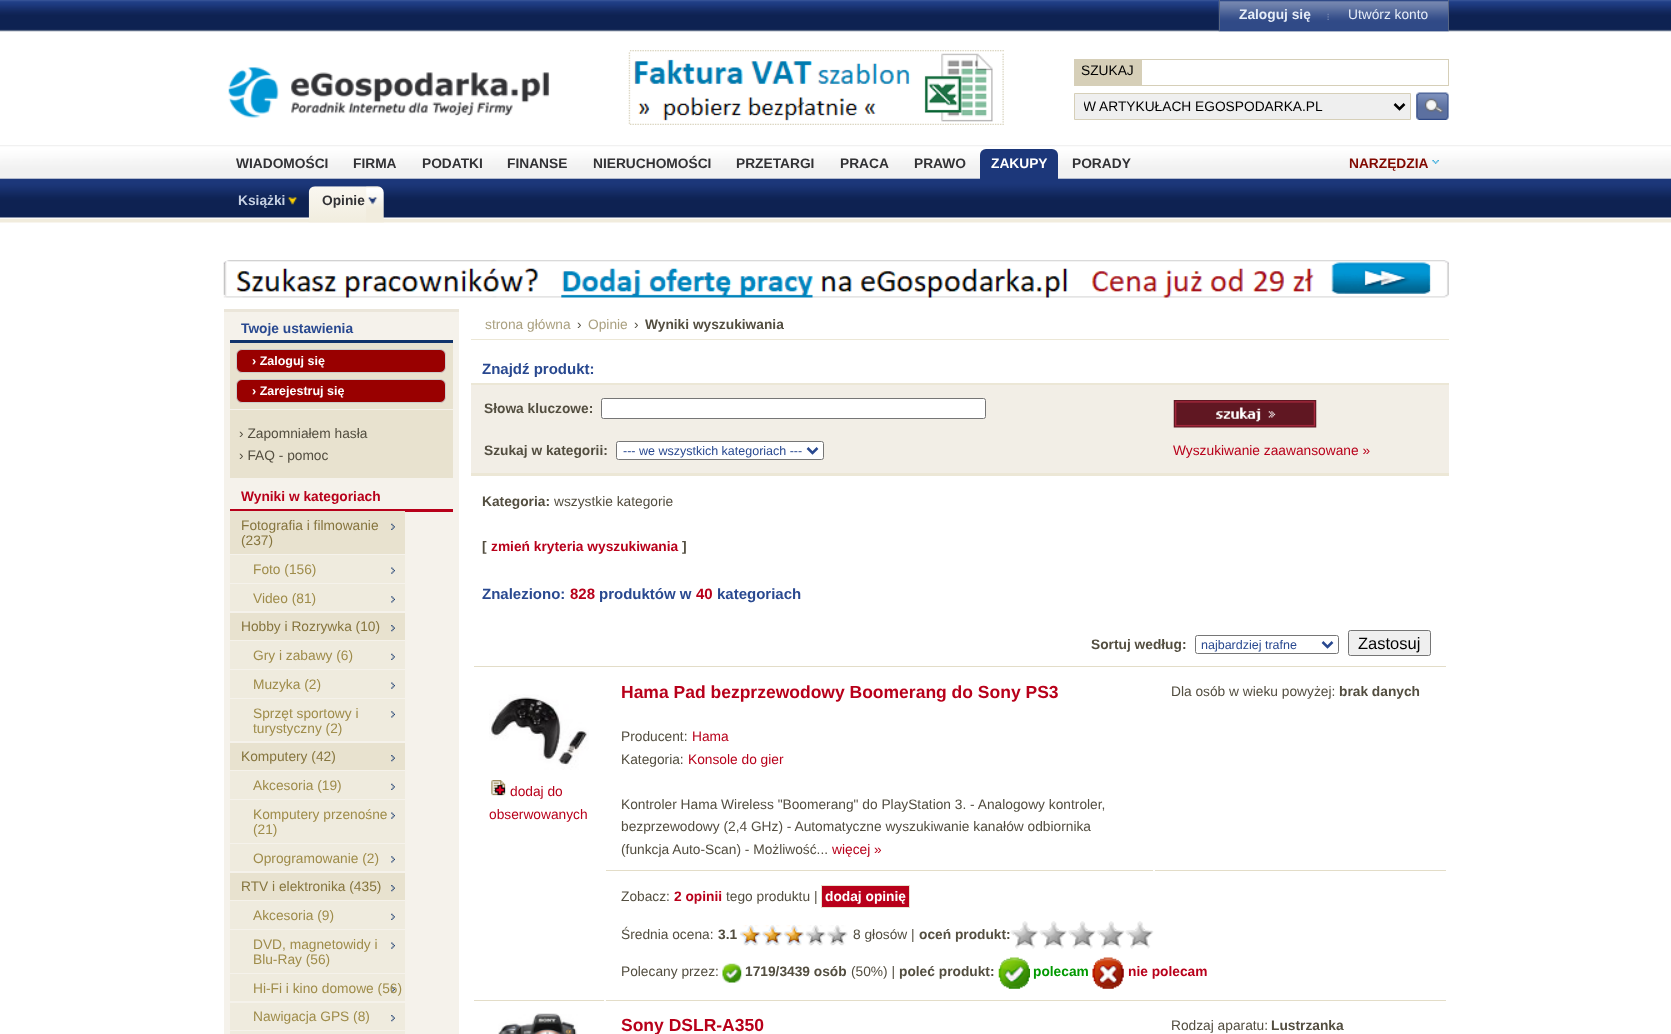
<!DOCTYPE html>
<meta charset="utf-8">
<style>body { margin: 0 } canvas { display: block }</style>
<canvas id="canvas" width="1671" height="1034"></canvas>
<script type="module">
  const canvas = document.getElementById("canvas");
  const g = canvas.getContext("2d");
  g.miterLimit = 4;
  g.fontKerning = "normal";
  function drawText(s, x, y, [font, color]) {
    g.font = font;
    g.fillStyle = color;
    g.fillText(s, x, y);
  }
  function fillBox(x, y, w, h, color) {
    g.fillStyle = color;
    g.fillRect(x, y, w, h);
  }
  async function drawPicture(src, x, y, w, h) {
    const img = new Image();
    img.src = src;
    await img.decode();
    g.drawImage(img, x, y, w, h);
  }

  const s1 = ["bold 13.75px Liberation Sans", "#E6EDF8"];
  const s2 = ["13.75px Liberation Sans", "#E6EDF8"];
  const s3 = ["13.75px Liberation Sans", "#000000"];
  const s4 = ["bold 13.75px Liberation Sans", "#323235"];
  const s5 = ["bold 13.75px Liberation Sans", "#FFFFFF"];
  const s6 = ["bold 13.75px Liberation Sans", "#810900"];
  const s7 = ["bold 13.75px Liberation Sans", "#C6D1E4"];
  const s8 = ["bold 13.75px Liberation Sans", "#294990"];
  const s9 = ["bold 12.5px Liberation Sans", "#FFFFFF"];
  const s10 = ["13.75px Liberation Sans", "#534E40"];
  const s11 = ["bold 13.75px Liberation Sans", "#B8001A"];
  const s12 = ["13.75px Liberation Sans", "#86753E"];
  const s13 = ["13.75px Liberation Sans", "#9F8C4A"];
  const s14 = ["13.75px Liberation Sans", "#ABA181"];
  const s15 = ["bold 13.75px Liberation Sans", "#534E40"];
  const s16 = ["bold 15px Liberation Sans", "#294990"];
  const s17 = ["13.75px Liberation Sans", "#B8001A"];
  const s18 = ["12.5px Liberation Sans", "#294990"];
  const s19 = ["bold 15px Liberation Sans", "#B8001A"];
  const s20 = ["16.5px Liberation Sans", "#000000"];
  const s21 = ["bold 17.5px Liberation Sans", "#B8001A"];
  const s22 = ["bold 13.75px Liberation Sans", "#009900"];

  fillBox(0, 0, 1671, 1034, "#FFFFFF");
  await drawPicture("pic3.png", 0, 0, 1671, 32);
  await drawPicture("pic1.png", 1218, 0, 231, 32);
  fillBox(1448, 0, 1, 31, "#586683");
  fillBox(1219, 0, 1, 31, "#586683");
  await drawPicture("pic2.png", 1327, 13, 2, 7);
  drawText("Zaloguj się", 1239, 19, s1);
  drawText("Utwórz konto", 1348, 19, s2);
  await drawPicture("pic4.png", 228, 67, 322, 51);
  await drawPicture("pic5.png", 628, 50, 376, 75);
  fillBox(1074, 59, 67, 27, "#D6CFB8");
  drawText("SZUKAJ", 1081, 75, s3);
  g.strokeStyle = "#D6CFB8";
  g.strokeRect(1141.5, 59.5, 307, 26);
  g.fillStyle = "#EFEFEF";
  g.beginPath();
  g.rect(1074.5, 93.5, 336, 26);
  g.fill();
  g.stroke();
  g.beginPath();
  g.moveTo(1394.5, 104);
  g.lineTo(1399.5, 109);
  g.lineTo(1404.5, 104);
  g.strokeStyle = "#000000";
  g.lineWidth = 2.5;
  g.stroke();
  g.save();
  g.beginPath();
  g.rect(1084, 98, 302, 17);
  g.clip();
  drawText("W ARTYKUŁACH EGOSPODARKA.PL", 1083, 111, s3);
  g.restore();
  await drawPicture("pic6.png", 1416, 92, 33, 28);
  await drawPicture("pic7.png", 0, 145, 1671, 78);
  drawText("WIADOMOŚCI", 236, 168, s4);
  drawText("FIRMA", 353, 168, s4);
  drawText("PODATKI", 422, 168, s4);
  drawText("FINANSE", 507, 168, s4);
  drawText("NIERUCHOMOŚCI", 593, 168, s4);
  drawText("PRZETARGI", 736, 168, s4);
  drawText("PRACA", 840, 168, s4);
  drawText("PRAWO", 914, 168, s4);
  g.fillStyle = "#1C377A";
  g.beginPath();
  g.roundRect(980, 149, 78, 32, [6, 6, 0, 0]);
  g.fill();
  drawText("ZAKUPY", 991, 168, s5);
  drawText("PORADY", 1072, 168, s4);
  await drawPicture("pic8.png", 1432, 160, 7, 4);
  drawText("NARZĘDZIA", 1349, 168, s6);
  await drawPicture("pic9.png", 287, 197, 11, 9);
  drawText("Książki", 238, 205, s7);
  await drawPicture("pic10.png", 308, 186, 76, 37);
  drawText("Opinie", 322, 205, s4);
  await drawPicture("pic11.png", 223, 260, 1226, 38);
  fillBox(224, 312, 235, 722, "#F5F2EB");
  fillBox(224, 309, 235, 3, "#EBE6DA");
  drawText("Twoje ustawienia", 241, 333, s8);
  fillBox(230, 343, 223, 135, "#E8E2CF");
  fillBox(230, 340, 223, 3, "#11346A");
  g.fillStyle = "#990000";
  g.beginPath();
  g.roundRect(236.5, 349.5, 209, 23, 5.5);
  g.fill();
  g.strokeStyle = "#CCCCCC";
  g.lineWidth = 1;
  g.stroke();
  drawText("› Zaloguj się", 252, 365, s9);
  g.fillStyle = "#990000";
  g.beginPath();
  g.roundRect(236.5, 379.5, 209, 23, 5.5);
  g.fill();
  g.stroke();
  drawText("› Zarejestruj się", 252, 395, s9);
  fillBox(230, 409, 223, 1, "#F5F2EB");
  drawText("› Zapomniałem hasła", 239, 438, s10);
  drawText("› FAQ - pomoc", 239, 460, s10);
  drawText("Wyniki w kategoriach", 241, 501, s11);
  fillBox(230, 509, 223, 3, "#B8001A");
  fillBox(230, 511, 175, 43, "#E8E2CF");
  await drawPicture("pic12.png", 391, 523, 4, 7);
  drawText("Fotografia i filmowanie", 241, 530, s12);
  drawText("(237)", 241, 545, s12);
  fillBox(230, 555, 175, 28, "#EFEBDE");
  await drawPicture("pic13.png", 391, 567, 4, 7);
  drawText("Foto (156)", 253, 574, s13);
  fillBox(230, 584, 175, 27, "#EFEBDE");
  await drawPicture("pic14.png", 391, 596, 4, 7);
  drawText("Video (81)", 253, 603, s13);
  fillBox(230, 613, 175, 27, "#E8E2CF");
  await drawPicture("pic15.png", 391, 625, 4, 7);
  drawText("Hobby i Rozrywka (10)", 241, 631, s12);
  fillBox(230, 641, 175, 28, "#EFEBDE");
  await drawPicture("pic16.png", 391, 653, 4, 7);
  drawText("Gry i zabawy (6)", 253, 660, s13);
  fillBox(230, 670, 175, 28, "#EFEBDE");
  await drawPicture("pic13.png", 391, 682, 4, 7);
  drawText("Muzyka (2)", 253, 689, s13);
  fillBox(230, 699, 175, 42, "#EFEBDE");
  await drawPicture("pic14.png", 391, 711, 4, 7);
  drawText("Sprzęt sportowy i", 253, 718, s13);
  drawText("turystyczny (2)", 253, 733, s13);
  fillBox(230, 743, 175, 27, "#E8E2CF");
  await drawPicture("pic15.png", 391, 755, 4, 7);
  drawText("Komputery (42)", 241, 761, s12);
  fillBox(230, 771, 175, 28, "#EFEBDE");
  await drawPicture("pic16.png", 391, 783, 4, 7);
  drawText("Akcesoria (19)", 253, 790, s13);
  fillBox(230, 800, 175, 43, "#EFEBDE");
  await drawPicture("pic13.png", 391, 812, 4, 7);
  drawText("Komputery przenośne", 253, 819, s13);
  drawText("(21)", 253, 834, s13);
  fillBox(230, 844, 175, 27, "#EFEBDE");
  await drawPicture("pic14.png", 391, 856, 4, 7);
  drawText("Oprogramowanie (2)", 253, 863, s13);
  fillBox(230, 873, 175, 27, "#E8E2CF");
  await drawPicture("pic15.png", 391, 885, 4, 7);
  drawText("RTV i elektronika (435)", 241, 891, s12);
  fillBox(230, 901, 175, 28, "#EFEBDE");
  await drawPicture("pic16.png", 391, 913, 4, 7);
  drawText("Akcesoria (9)", 253, 920, s13);
  fillBox(230, 930, 175, 43, "#EFEBDE");
  await drawPicture("pic13.png", 391, 942, 4, 7);
  drawText("DVD, magnetowidy i", 253, 949, s13);
  drawText("Blu-Ray (56)", 253, 964, s13);
  fillBox(230, 974, 175, 27, "#EFEBDE");
  await drawPicture("pic14.png", 391, 986, 4, 7);
  drawText("Hi-Fi i kino domowe (56)", 253, 993, s13);
  fillBox(230, 1003, 175, 27, "#EFEBDE");
  await drawPicture("pic17.png", 391, 1015, 4, 7);
  drawText("Nawigacja GPS (8)", 253, 1021, s13);
  fillBox(230, 1031, 175, 3, "#EFEBDE");
  fillBox(471, 339, 978, 1, "#ECE7D6");
  drawText("strona główna", 485, 329, s14);
  drawText("›", 577, 329, s10);
  drawText("Opinie", 588, 329, s14);
  drawText("›", 634, 329, s10);
  drawText("Wyniki wyszukiwania", 645, 329, s15);
  drawText("Znajdź produkt:", 482, 374, s16);
  fillBox(471, 383, 978, 2, "#ECE7D6");
  fillBox(471, 385, 978, 88, "#F2EEE6");
  drawText("Słowa kluczowe:", 484, 413, s15);
  g.fillStyle = "#FFFFFF";
  g.beginPath();
  g.roundRect(601.5, 398.5, 384, 20, 2);
  g.fill();
  g.strokeStyle = "#767676";
  g.stroke();
  await drawPicture("pic18.png", 1173, 400, 144, 28);
  drawText("Wyszukiwanie zaawansowane »", 1173, 455, s17);
  drawText("Szukaj w kategorii:", 484, 455, s15);
  g.fillStyle = "#FFFFFF";
  g.beginPath();
  g.roundRect(616.5, 441.5, 207, 18, 2);
  g.fill();
  g.stroke();
  g.beginPath();
  g.moveTo(807.5, 448);
  g.lineTo(812.5, 453);
  g.lineTo(817.5, 448);
  g.strokeStyle = "#294990";
  g.lineWidth = 2.5;
  g.stroke();
  drawText("--- we wszystkich kategoriach ---", 623, 455, s18);
  fillBox(471, 473, 978, 3, "#ECE7D6");
  drawText("Kategoria:", 482, 506, s15);
  drawText("wszystkie kategorie", 554, 506, s10);
  drawText("[", 482, 551, s15);
  drawText("zmień kryteria wyszukiwania", 491, 551, s11);
  drawText("]", 682, 551, s15);
  drawText("Znaleziono:", 482, 599, s16);
  drawText("828", 570, 599, s19);
  drawText("produktów w", 599, 599, s16);
  drawText("40", 696, 599, s19);
  drawText("kategoriach", 717, 599, s16);
  fillBox(474, 666, 972, 1, "#E3DDC8");
  drawText("Sortuj według:", 1091, 649, s15);
  g.beginPath();
  g.roundRect(1195.5, 635.5, 143, 18, 2);
  g.strokeStyle = "#767676";
  g.lineWidth = 1;
  g.stroke();
  g.beginPath();
  g.moveTo(1322.5, 642);
  g.lineTo(1327.5, 647);
  g.lineTo(1332.5, 642);
  g.strokeStyle = "#294990";
  g.lineWidth = 2.5;
  g.stroke();
  drawText("najbardziej trafne", 1201, 649, s18);
  g.fillStyle = "#EFEFEF";
  g.beginPath();
  g.roundRect(1348.5, 630.5, 82, 25, 2);
  g.fill();
  g.strokeStyle = "#767676";
  g.lineWidth = 1;
  g.stroke();
  drawText("Zastosuj", 1358, 649, s20);
  fillBox(606, 870, 547, 1, "#E3DDC8");
  drawText("Hama Pad bezprzewodowy Boomerang do Sony PS3", 621, 698, s21);
  drawText("Producent:", 621, 741, s10);
  drawText("Hama", 692, 741, s17);
  drawText("Kategoria:", 621, 764, s10);
  drawText("Konsole do gier", 688, 764, s17);
  drawText("Kontroler Hama Wireless \"Boomerang\" do PlayStation 3. - Analogowy kontroler,", 621, 809, s10);
  drawText("bezprzewodowy (2,4 GHz) - Automatyczne wyszukiwanie kanałów odbiornika", 621, 831, s10);
  drawText("(funkcja Auto-Scan) - Możliwość...", 621, 854, s10);
  drawText("więcej »", 832, 854, s17);
  fillBox(1155, 870, 291, 1, "#E3DDC8");
  drawText("Dla osób w wieku powyżej:", 1171, 696, s10);
  drawText("brak danych", 1339, 696, s15);
  fillBox(474, 1000, 130, 1, "#E3DDC8");
  await drawPicture("pic19.png", 489, 694, 100, 76);
  await drawPicture("pic20.png", 491, 780, 15, 16);
  drawText("dodaj do", 510, 796, s17);
  drawText("obserwowanych", 489, 819, s17);
  fillBox(606, 1000, 840, 1, "#E3DDC8");
  drawText("Zobacz:", 621, 901, s10);
  drawText("2 opinii", 674, 901, s11);
  drawText("tego produktu |", 726, 901, s10);
  g.fillStyle = "#B8001A";
  g.beginPath();
  g.rect(821.5, 885.5, 88, 22);
  g.fill();
  g.strokeStyle = "#E8E2CF";
  g.stroke();
  drawText("dodaj opinię", 825, 901, s5);
  drawText("Średnia ocena:", 621, 939, s10);
  drawText("3.1", 718, 939, s15);
  await drawPicture("pic21.png", 740, 925, 108, 21);
  drawText("8 głosów |", 853, 939, s10);
  drawText("oceń produkt:", 919, 939, s15);
  await drawPicture("pic22.png", 1010, 921, 29, 28);
  await drawPicture("pic23.png", 1039, 921, 29, 28);
  await drawPicture("pic24.png", 1068, 921, 28, 28);
  await drawPicture("pic25.png", 1096, 921, 29, 28);
  await drawPicture("pic26.png", 1125, 921, 29, 28);
  drawText("Polecany przez:", 621, 976, s10);
  await drawPicture("pic27.png", 722, 963, 20, 20);
  drawText("1719/3439 osób", 745, 976, s15);
  drawText("(50%) |", 851, 976, s10);
  drawText("poleć produkt:", 899, 976, s15);
  await drawPicture("pic28.png", 998, 957, 32, 32);
  drawText("polecam", 1033, 976, s22);
  await drawPicture("pic29.png", 1092, 957, 32, 32);
  drawText("nie polecam", 1128, 976, s11);
  await drawPicture("pic30.png", 498, 1013, 80, 21);
  drawText("Sony DSLR-A350", 621, 1031, s21);
  drawText("Rodzaj aparatu:", 1171, 1030, s10);
  drawText("Lustrzanka", 1271, 1030, s15);
</script>
